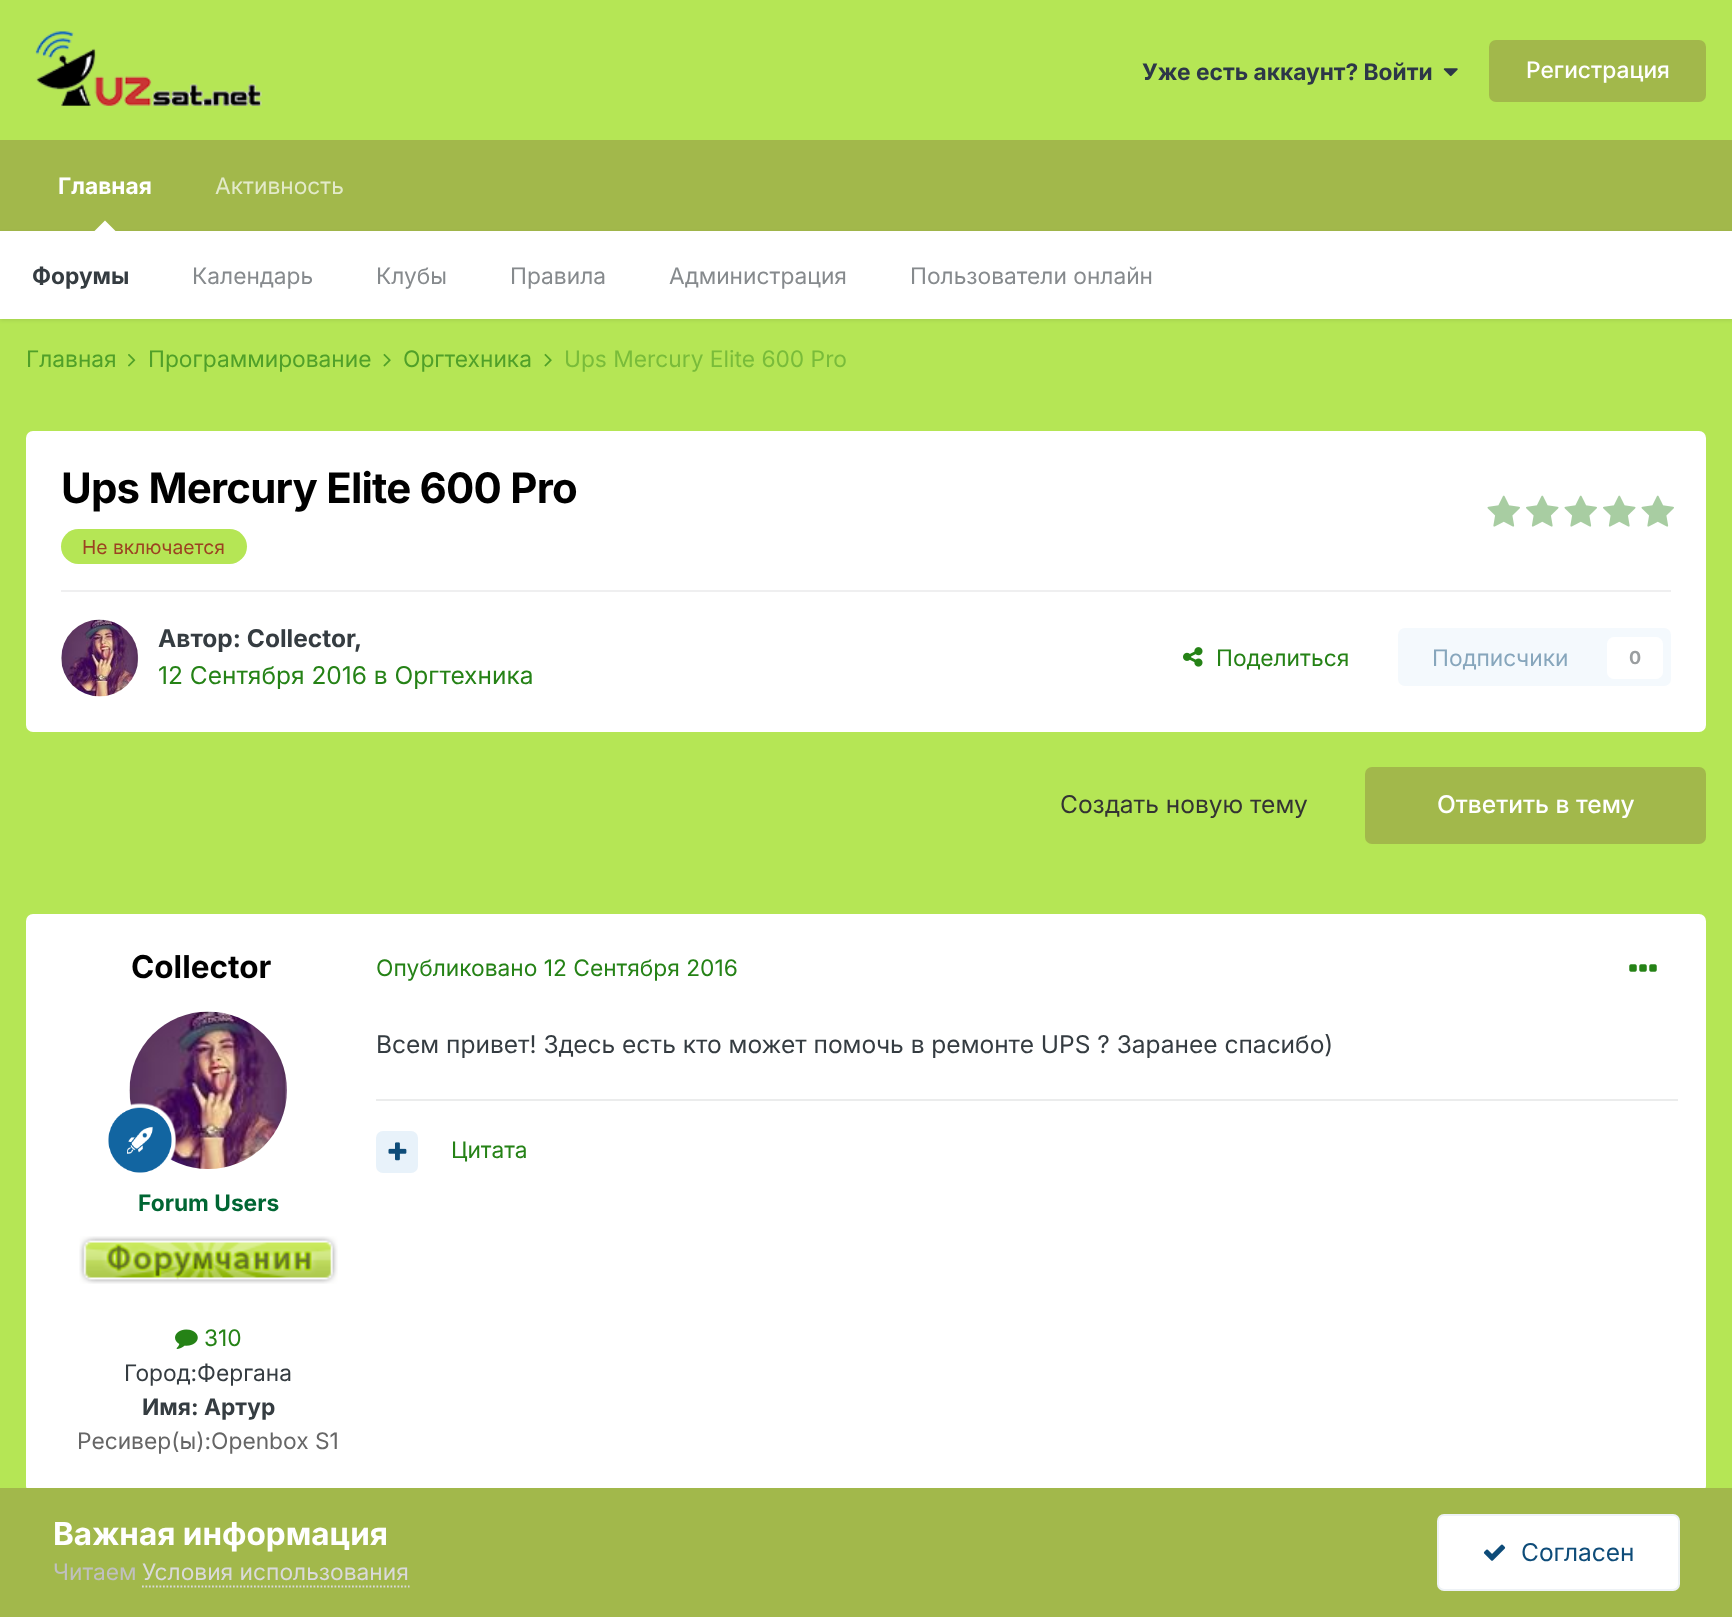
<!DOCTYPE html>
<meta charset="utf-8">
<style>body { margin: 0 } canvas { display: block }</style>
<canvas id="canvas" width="1732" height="1617"></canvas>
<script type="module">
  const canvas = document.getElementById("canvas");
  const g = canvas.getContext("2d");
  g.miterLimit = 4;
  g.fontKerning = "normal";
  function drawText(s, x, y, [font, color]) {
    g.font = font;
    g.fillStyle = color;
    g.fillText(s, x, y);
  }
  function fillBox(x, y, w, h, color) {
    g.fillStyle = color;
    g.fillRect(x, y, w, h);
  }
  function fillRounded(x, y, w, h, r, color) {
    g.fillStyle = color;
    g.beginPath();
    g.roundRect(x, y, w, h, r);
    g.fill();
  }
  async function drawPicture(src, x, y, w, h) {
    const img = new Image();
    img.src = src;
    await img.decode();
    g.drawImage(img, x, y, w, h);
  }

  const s1 = ["bold 22.75px Inter", "#2D3748"];
  const s2 = ["500 22.75px Inter", "#FFFFFF"];
  const s3 = ["bold 22.75px Inter", "#FFFFFF"];
  const s4 = ["bold 22.75px Inter", "#353C41"];
  const s5 = ["22.75px Inter", "#868A8D"];
  const s6 = ["22.75px Inter", "#E3EAC9"];
  const s7 = ["22.75px Inter", "#50A029"];
  const s8 = ["22.75px Inter", "#79BC3A"];
  const s9 = ["bold 42px Inter", "#000000"];
  const s10 = ["19.25px Inter", "#9C4221"];
  const s11 = ["bold 24.5px Inter", "#353C41"];
  const s12 = ["24.5px Inter", "#258216"];
  const s13 = ["22.75px Inter", "#258216"];
  const s14 = ["22.75px Inter", "#87A6BC"];
  const s15 = ["bold 18px Inter", "#9A9EA0"];
  const s16 = ["24.5px Inter", "#333333"];
  const s17 = ["500 24.5px Inter", "#FFFFFF"];
  const s18 = ["bold 31.5px Inter", "#000000"];
  const s19 = ["bold 22.75px Inter", "#006633"];
  const s20 = ["22.75px Inter", "#353C41"];
  const s21 = ["22.75px Inter", "#666666"];
  const s22 = ["24.5px Inter", "#353C41"];
  const s23 = ["bold 31.5px Inter", "#FFFFFF"];
  const s24 = ["22.75px Inter", "#C0C0C0"];
  const s25 = ["22.75px Inter", "#DADADA"];
  const s26 = ["24.5px Inter", "#0E4C79"];

  fillBox(0, 0, 1732, 1617, "#B5E655");
  await drawPicture("pic1.png", 35, 31, 227, 75);
  drawText("Уже есть аккаунт? Войти", 1142, 80, s1);
  await drawPicture("pic2.png", 1443, 68, 15, 9);
  fillRounded(1489, 40, 217, 62, 7, "#A2B84B");
  drawText("Регистрация", 1526, 78, s2);
  fillBox(0, 140, 1732, 91, "#A2B84B");
  drawText("Главная", 58, 194, s3);
  g.fillStyle = "rgba(0, 0, 0, 0.1)";
  g.filter = "blur(2px)";
  g.beginPath();
  g.rect(0, 233, 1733, 87);
  g.fill();
  g.filter = "none";
  g.fillStyle = "#FFFFFF";
  g.beginPath();
  g.moveTo(115.5, 231);
  g.lineTo(94.5, 231);
  g.lineTo(105, 220.5);
  g.closePath();
  g.fill();
  fillBox(0, 231, 1732, 88, "#FFFFFF");
  drawText("Форумы", 32, 284, s4);
  drawText("Календарь", 192, 284, s5);
  drawText("Клубы", 376, 284, s5);
  drawText("Правила", 510, 284, s5);
  drawText("Администрация", 669, 284, s5);
  drawText("Пользователи онлайн", 910, 284, s5);
  drawText("Активность", 215, 194, s6);
  drawText("Главная", 26, 367, s7);
  await drawPicture("pic3.png", 128, 354, 8, 13);
  drawText("Программирование", 148, 367, s7);
  await drawPicture("pic4.png", 383, 353, 8, 14);
  drawText("Оргтехника", 403, 367, s7);
  await drawPicture("pic4.png", 544, 353, 8, 14);
  drawText("Ups Mercury Elite 600 Pro", 564, 367, s8);
  fillRounded(26, 431, 1680, 301, 7, "#FFFFFF");
  g.letterSpacing = "-0.8px";
  drawText("Ups Mercury Elite 600 Pro", 61, 503, s9);
  fillRounded(61, 529, 186, 35, 17.5, "#B5E655");
  g.letterSpacing = "0px";
  drawText("Не включается", 82, 554, s10);
  await drawPicture("pic5.png", 1487, 495, 33, 32);
  await drawPicture("pic6.png", 1526, 495, 33, 32);
  await drawPicture("pic5.png", 1564, 495, 33, 32);
  await drawPicture("pic6.png", 1603, 495, 33, 32);
  await drawPicture("pic5.png", 1641, 495, 33, 32);
  fillBox(61, 590, 1610, 2, "#EFEFF0");
  await drawPicture("pic7.png", 61, 619, 78, 78);
  drawText("Автор: Collector", 158, 647, s11);
  drawText(",", 354, 647, s11);
  drawText("12 Сентября 2016 в Оргтехника", 158, 684, s12);
  await drawPicture("pic8.png", 1183, 647, 20, 20);
  drawText("Поделиться", 1216, 666, s13);
  fillRounded(1398, 628, 273, 58, 7, "#F4F9FD");
  drawText("Подписчики", 1432, 666, s14);
  fillRounded(1607, 637, 56, 42, 7, "#FFFFFF");
  drawText("0", 1629, 664, s15);
  drawText("Создать новую тему", 1060, 813, s16);
  fillRounded(1365, 767, 341, 77, 7, "#A2B84B");
  drawText("Ответить в тему", 1437, 813, s17);
  fillRounded(26, 914, 1680, 579, 7, "#FFFFFF");
  drawText("Collector", 131, 978, s18);
  await drawPicture("pic9.png", 129, 1011, 158, 158);
  await drawPicture("pic10.png", 108, 1103, 68, 70);
  drawText("Forum Users", 138, 1211, s19);
  await drawPicture("pic11.png", 79, 1236, 259, 48);
  await drawPicture("pic12.png", 175, 1329, 23, 20);
  drawText("310", 204, 1346, s13);
  drawText("Город:Фергана", 124, 1381, s20);
  drawText("Имя: Артур", 142, 1415, s4);
  drawText("Ресивер(ы):Openbox S1", 77, 1449, s21);
  drawText("Опубликовано 12 Сентября 2016", 376, 976, s13);
  await drawPicture("pic13.png", 1629, 964, 28, 8);
  drawText("Всем привет! Здесь есть кто может помочь в ремонте UPS ? Заранее спасибо)", 376, 1053, s22);
  fillBox(376, 1099, 1302, 2, "#EBECEC");
  fillRounded(376, 1131, 42, 42, 7, "#E8F2FA");
  await drawPicture("pic14.png", 388, 1142, 19, 19);
  drawText("Цитата", 451, 1158, s13);
  fillBox(0, 1488, 1732, 129, "#A2B84B");
  drawText("Важная информация", 53, 1545, s23);
  drawText("Читаем", 53, 1580, s24);
  drawText("Условия использования", 142, 1580, s25);
  g.beginPath();
  g.moveTo(142, 1586.5);
  g.lineTo(409.5, 1586.5);
  g.strokeStyle = "#DADADA";
  g.lineWidth = 1.8;
  g.setLineDash([1.75, 1.75]);
  g.stroke();
  fillRounded(1437, 1514, 243, 77, 7, "#FFFFFF");
  g.beginPath();
  g.roundRect(1438, 1515, 241, 75, 6);
  g.strokeStyle = "rgba(14, 76, 121, 0.07)";
  g.lineWidth = 2;
  g.setLineDash([]);
  g.stroke();
  await drawPicture("pic15.png", 1483, 1544, 23, 17);
  drawText("Согласен", 1521, 1561, s26);
</script>
